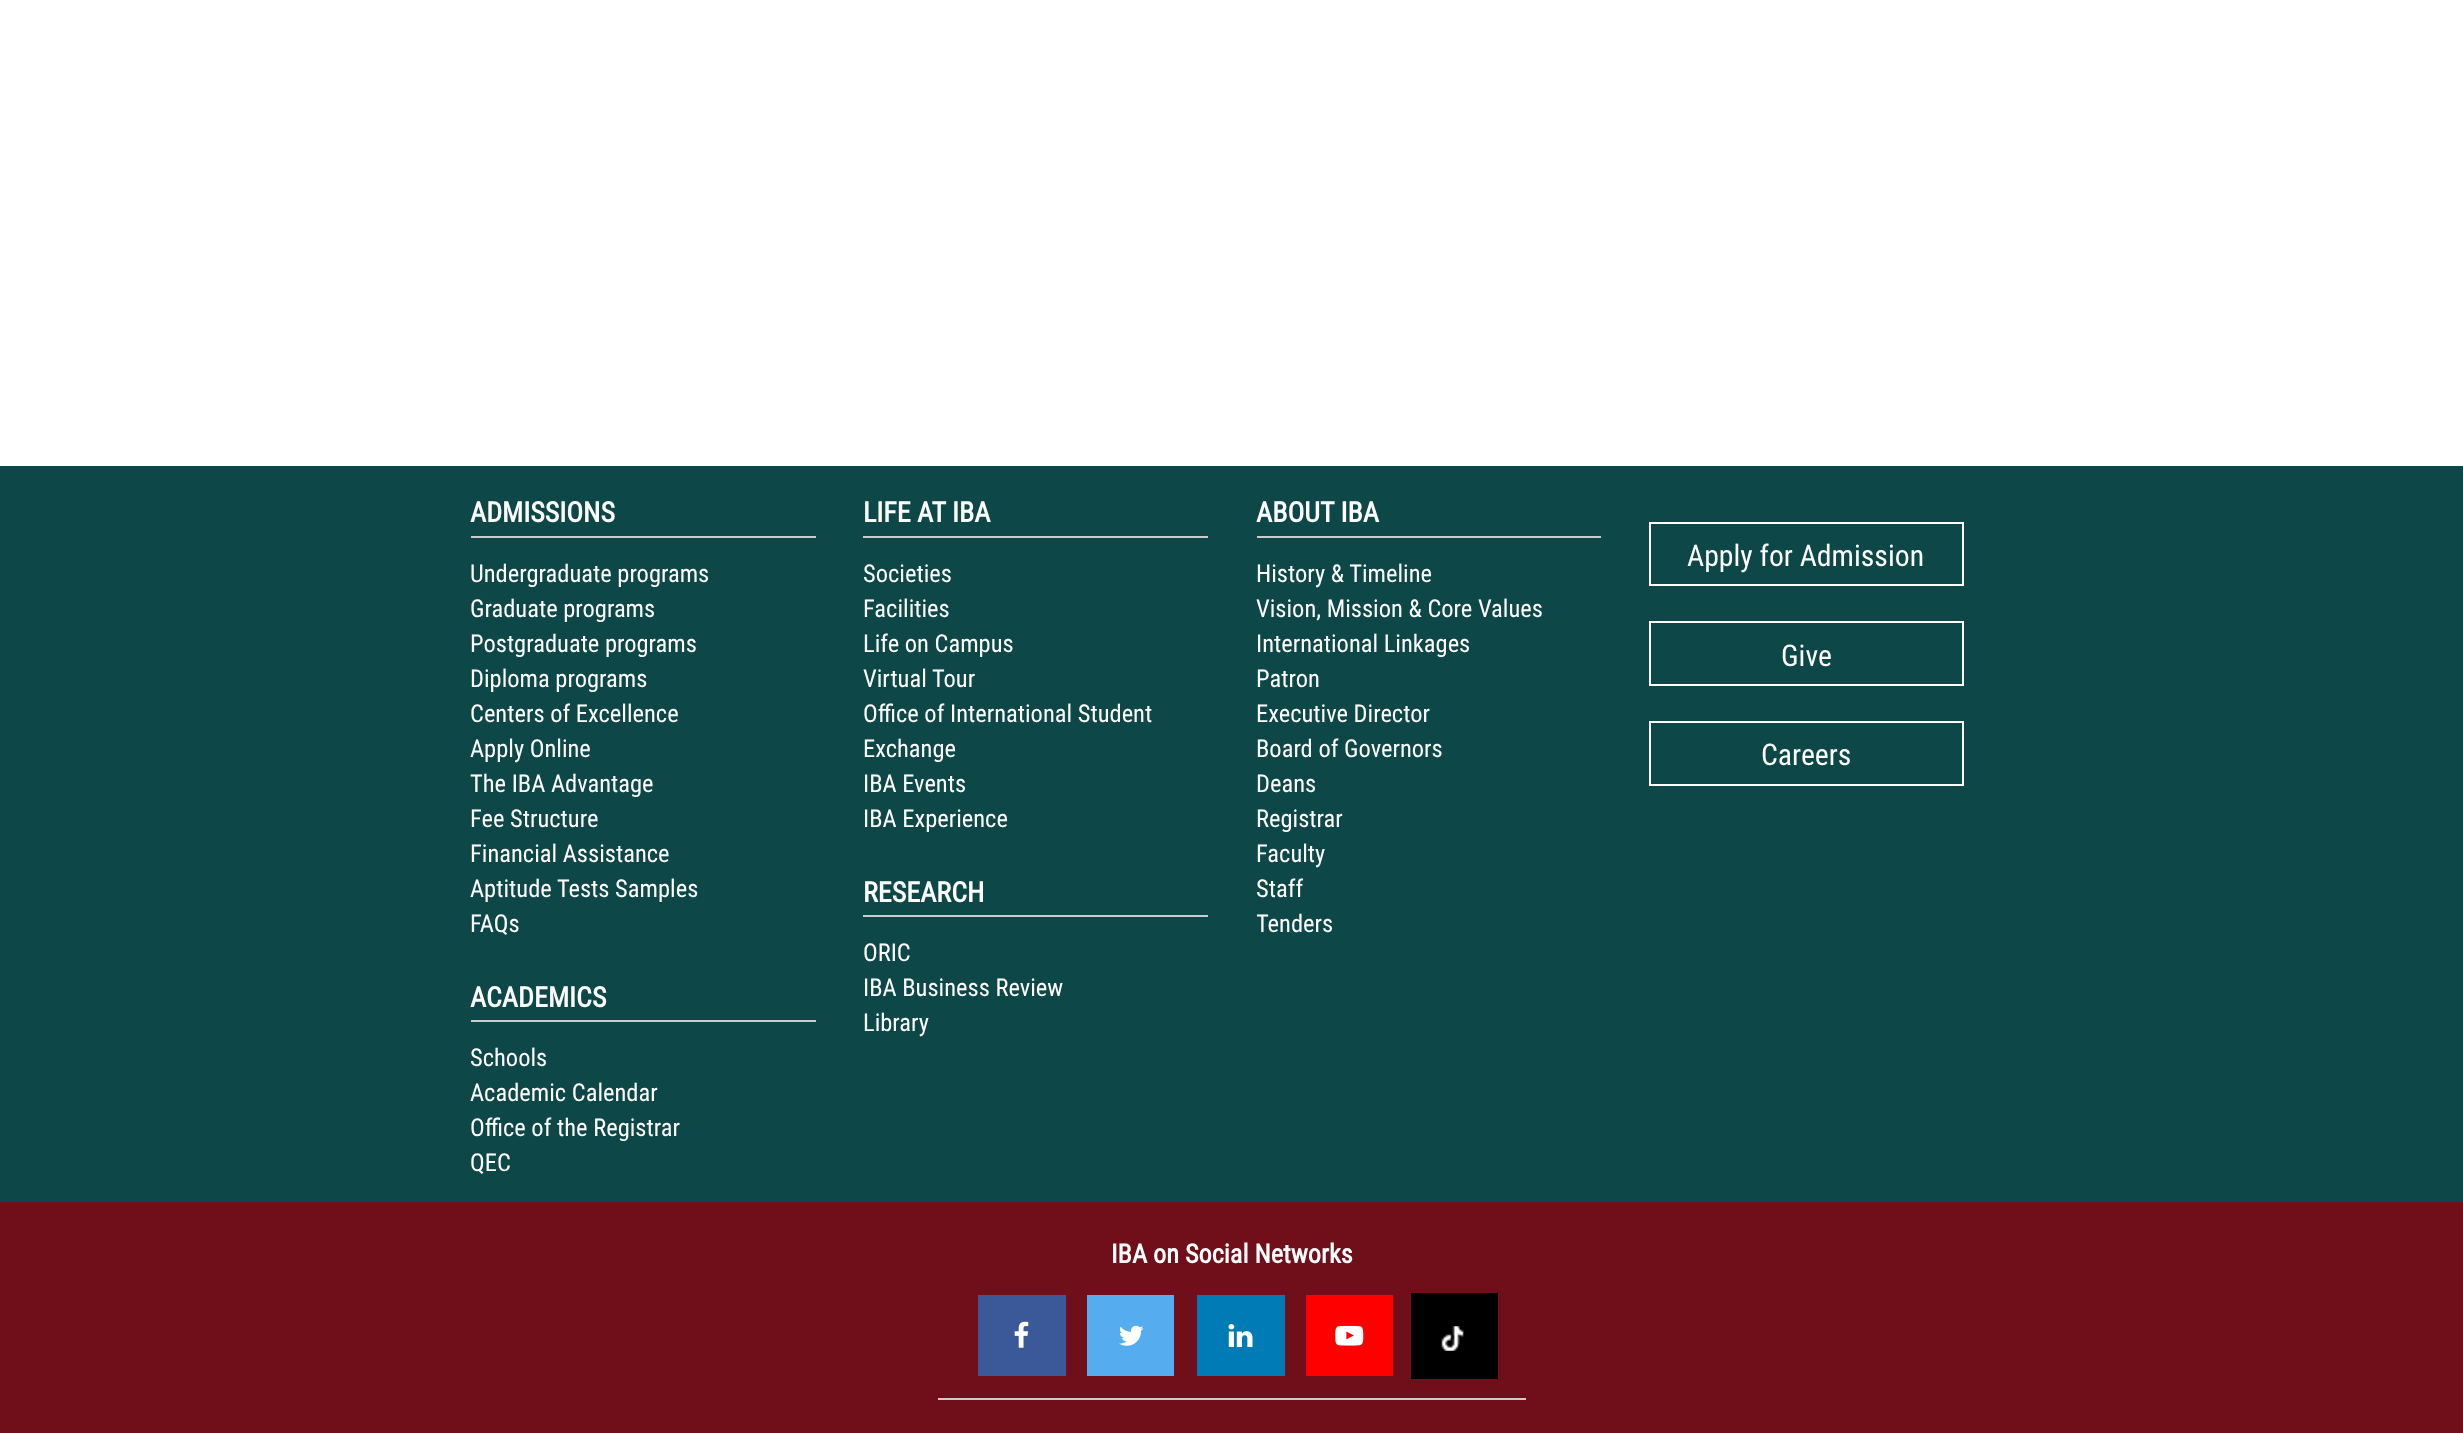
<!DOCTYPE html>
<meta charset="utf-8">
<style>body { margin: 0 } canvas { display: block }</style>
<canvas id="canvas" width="2463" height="1433"></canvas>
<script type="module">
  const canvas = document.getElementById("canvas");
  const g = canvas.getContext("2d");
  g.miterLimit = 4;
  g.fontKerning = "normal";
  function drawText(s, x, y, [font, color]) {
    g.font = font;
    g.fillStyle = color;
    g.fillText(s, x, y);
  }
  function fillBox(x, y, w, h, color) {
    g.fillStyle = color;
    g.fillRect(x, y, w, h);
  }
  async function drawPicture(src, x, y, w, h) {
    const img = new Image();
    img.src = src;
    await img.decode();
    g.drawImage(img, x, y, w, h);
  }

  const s1 = ["bold 28px Roboto Condensed", "#FFFFFF"];
  const s2 = ["24.5px Roboto Condensed", "#FFFFFF"];
  const s3 = ["29.75px Roboto Condensed", "#FFFFFF"];
  const s4 = ["bold 26.25px Roboto Condensed", "#FFFFFF"];

  fillBox(0, 0, 2463, 1433, "#FFFFFF");
  fillBox(0, 466, 2463, 736, "#0E4747");
  fillBox(471, 536, 345, 2, "#CCCCCC");
  drawText("ADMISSIONS", 470, 522, s1);
  drawText("Undergraduate programs", 470, 582, s2);
  drawText("Graduate programs", 470, 617, s2);
  drawText("Postgraduate programs", 470, 652, s2);
  drawText("Diploma programs", 470, 687, s2);
  drawText("Centers of Excellence", 470, 722, s2);
  drawText("Apply Online", 470, 757, s2);
  drawText("The IBA Advantage", 470, 792, s2);
  drawText("Fee Structure", 470, 827, s2);
  drawText("Financial Assistance", 470, 862, s2);
  drawText("Aptitude Tests Samples", 470, 897, s2);
  drawText("FAQs", 470, 932, s2);
  fillBox(471, 1020, 345, 2, "#CCCCCC");
  drawText("ACADEMICS", 470, 1007, s1);
  drawText("Schools", 470, 1066, s2);
  drawText("Academic Calendar", 470, 1101, s2);
  drawText("Office of the Registrar", 470, 1136, s2);
  drawText("QEC", 470, 1171, s2);
  fillBox(863, 536, 345, 2, "#CCCCCC");
  drawText("LIFE AT IBA", 863, 522, s1);
  drawText("Societies", 863, 582, s2);
  drawText("Facilities", 863, 617, s2);
  drawText("Life on Campus", 863, 652, s2);
  drawText("Virtual Tour", 863, 687, s2);
  drawText("Office of International Student", 863, 722, s2);
  drawText("Exchange", 863, 757, s2);
  drawText("IBA Events", 863, 792, s2);
  drawText("IBA Experience", 863, 827, s2);
  fillBox(863, 915, 345, 2, "#CCCCCC");
  drawText("RESEARCH", 863, 902, s1);
  drawText("ORIC", 863, 961, s2);
  drawText("IBA Business Review", 863, 996, s2);
  drawText("Library", 863, 1031, s2);
  fillBox(1257, 536, 344, 2, "#CCCCCC");
  drawText("ABOUT IBA", 1256, 522, s1);
  drawText("History & Timeline", 1256, 582, s2);
  drawText("Vision, Mission & Core Values", 1256, 617, s2);
  drawText("International Linkages", 1256, 652, s2);
  drawText("Patron", 1256, 687, s2);
  drawText("Executive Director", 1256, 722, s2);
  drawText("Board of Governors", 1256, 757, s2);
  drawText("Deans", 1256, 792, s2);
  drawText("Registrar", 1256, 827, s2);
  drawText("Faculty", 1256, 862, s2);
  drawText("Staff", 1256, 897, s2);
  g.save();
  g.beginPath();
  g.rect(1257, 555, 344, 385);
  g.clip();
  drawText("Tenders", 1256, 932, s2);
  g.restore();
  g.strokeStyle = "#FFFFFF";
  g.lineWidth = 2;
  g.strokeRect(1650, 523, 313, 62);
  drawText("Apply for Admission", 1687, 566, s3);
  g.strokeRect(1650, 622, 313, 63);
  drawText("Give", 1781, 666, s3);
  g.strokeRect(1650, 722, 313, 63);
  drawText("Careers", 1761, 765, s3);
  fillBox(0, 1202, 2463, 231, "#700F1A");
  drawText("IBA on Social Networks", 1111, 1263, s4);
  fillBox(938, 1398, 588, 2, "#CCCCCC");
  fillBox(978, 1295, 88, 81, "#3B5998");
  await drawPicture("pic1.png", 1014, 1321, 15, 27);
  fillBox(1087, 1295, 87, 81, "#55ACEE");
  await drawPicture("pic2.png", 1119, 1325, 25, 21);
  fillBox(1197, 1295, 88, 81, "#007BB5");
  await drawPicture("pic3.png", 1228, 1324, 25, 23);
  fillBox(1306, 1295, 87, 81, "#FF0000");
  await drawPicture("pic4.png", 1335, 1325, 29, 21);
  fillBox(1411, 1293, 87, 86, "#000000");
  await drawPicture("pic5.png", 1441, 1326, 23, 25);
</script>
